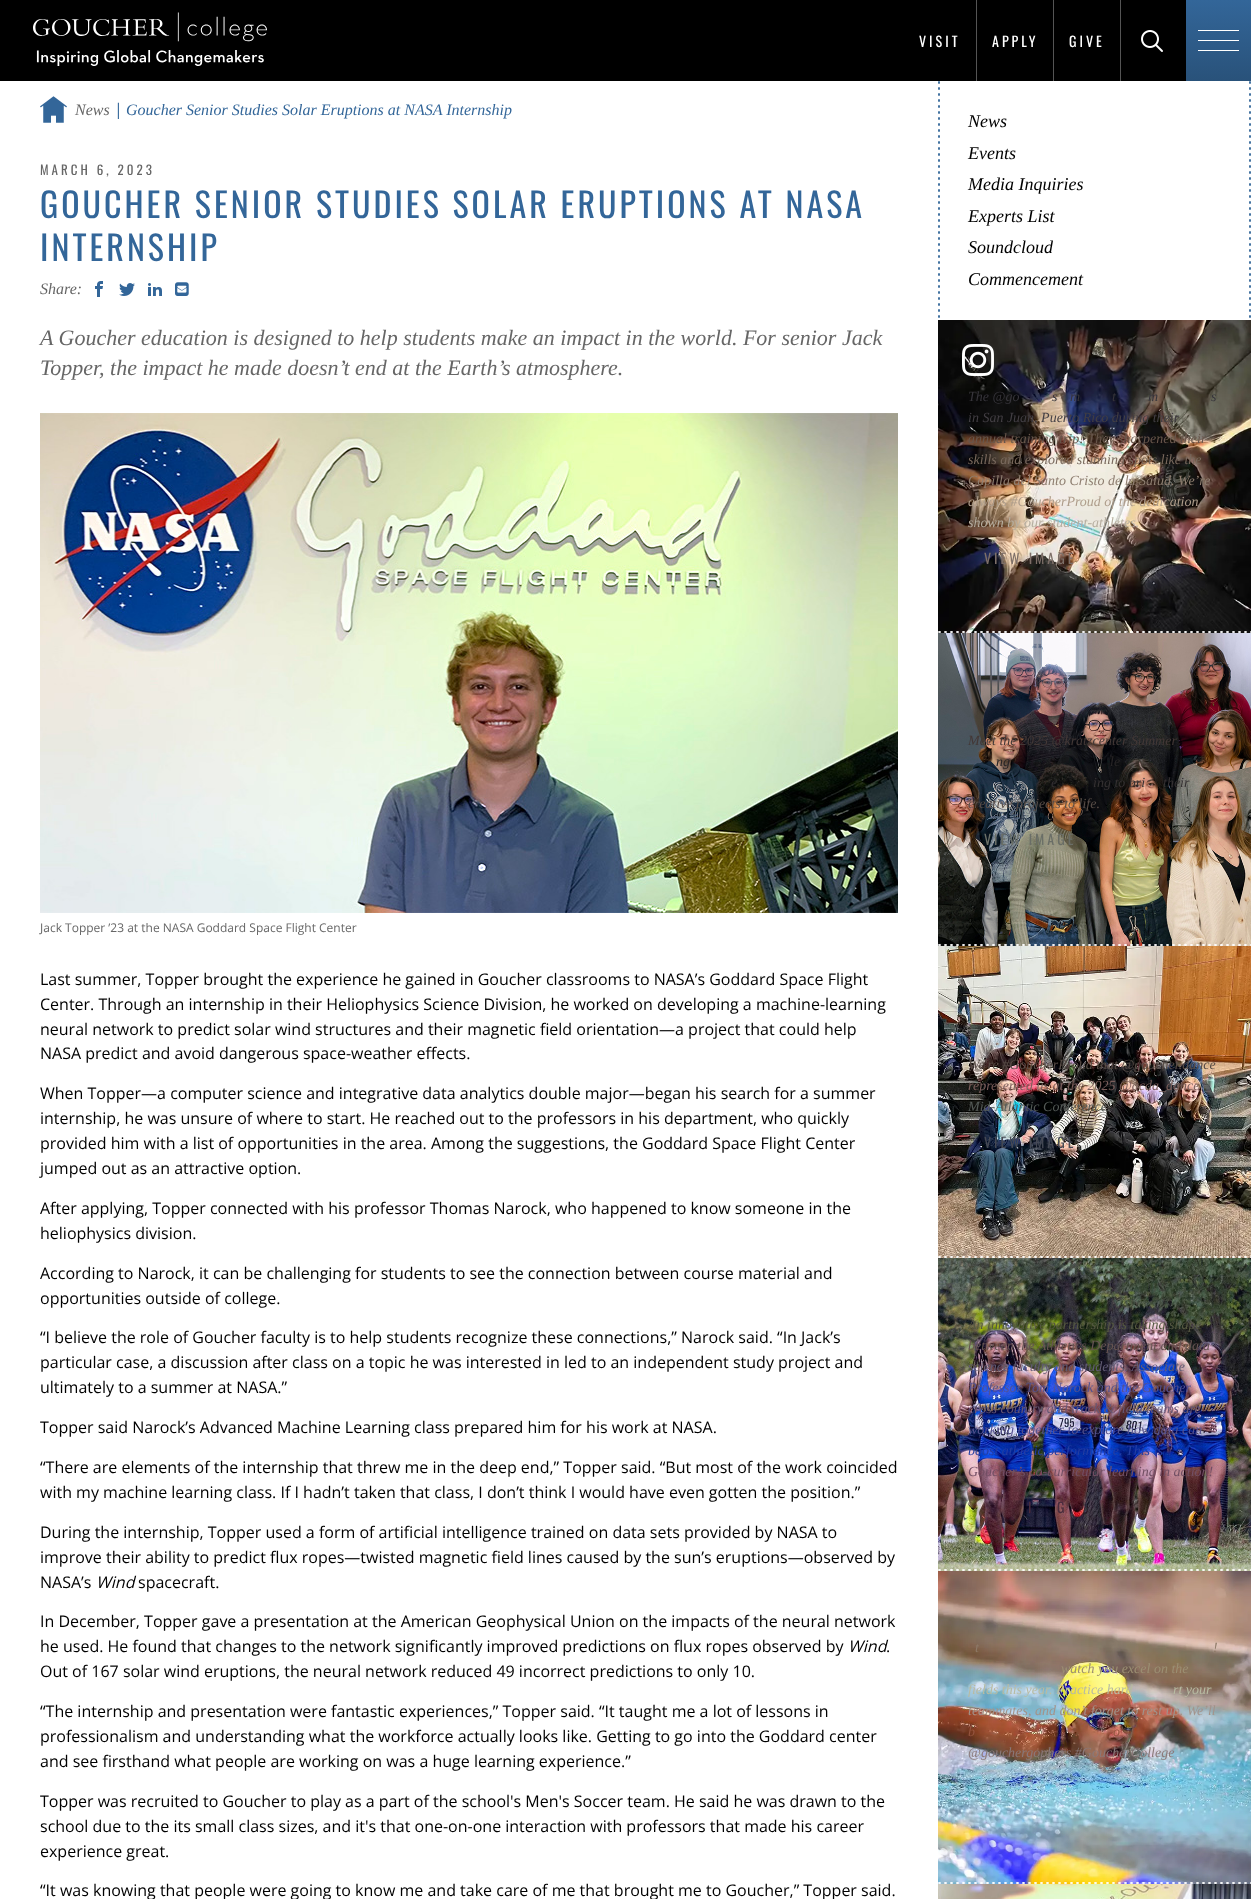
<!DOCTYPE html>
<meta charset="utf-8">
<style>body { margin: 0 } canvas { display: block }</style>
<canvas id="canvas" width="1251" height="1899"></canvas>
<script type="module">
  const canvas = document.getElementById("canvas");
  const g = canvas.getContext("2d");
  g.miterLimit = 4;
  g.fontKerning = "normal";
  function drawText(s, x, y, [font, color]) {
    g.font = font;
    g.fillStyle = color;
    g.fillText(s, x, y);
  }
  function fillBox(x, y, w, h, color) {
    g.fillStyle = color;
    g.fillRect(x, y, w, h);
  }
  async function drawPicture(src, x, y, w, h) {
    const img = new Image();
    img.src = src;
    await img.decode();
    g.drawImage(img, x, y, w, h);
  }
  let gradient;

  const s1 = ["14px Oswald", "#FFFFFF"];
  const s2 = ["italic 16px Liberation Serif", "#666666"];
  const s3 = ["16px Open Sans", "#336699"];
  const s4 = ["italic 16px Liberation Serif", "#336699"];
  const s5 = ["13px Oswald", "#666666"];
  const s6 = ["34px Oswald", "#336699"];
  const s7 = ["italic 22px Liberation Serif", "#666666"];
  const s8 = ["12px Open Sans", "#666666"];
  const s9 = ["16px Open Sans", "#000000"];
  const s10 = ["italic 16px Open Sans", "#000000"];
  const s11 = ["italic 18px Liberation Serif", "#000000"];
  const s12 = ["italic 14px Liberation Serif", "#37353B"];
  const s13 = ["italic 14px Liberation Serif", "#423E43"];
  const s14 = ["italic 14px Liberation Serif", "#68564B"];
  const s15 = ["italic 14px Liberation Serif", "#79695D"];
  const s16 = ["italic 14px Liberation Serif", "#8E7E70"];
  const s17 = ["italic 14px Liberation Serif", "#AE9D8B"];
  const s18 = ["italic 14px Liberation Serif", "#B6AEA0"];
  const s19 = ["14px Oswald", "#7D6F68"];
  const s20 = ["italic 14px Liberation Serif", "#433836"];
  const s21 = ["italic 14px Liberation Serif", "#282526"];
  const s22 = ["italic 14px Liberation Serif", "#353132"];
  const s23 = ["italic 14px Liberation Serif", "#584D47"];
  const s24 = ["14px Oswald", "#6A6E67"];
  const s25 = ["italic 14px Liberation Serif", "#7B5E5B"];
  const s26 = ["italic 14px Liberation Serif", "#545A57"];
  const s27 = ["14px Oswald", "#454954"];
  const s28 = ["italic 14px Liberation Serif", "#555841"];
  const s29 = ["italic 14px Liberation Serif", "#665452"];
  const s30 = ["italic 14px Liberation Serif", "#615B74"];
  const s31 = ["italic 14px Liberation Serif", "#55528F"];
  const s32 = ["italic 14px Liberation Serif", "#675674"];
  const s33 = ["italic 14px Liberation Serif", "#233DA3"];
  const s34 = ["italic 14px Liberation Serif", "#724F64"];
  const s35 = ["14px Oswald", "#482C3D"];
  const s36 = ["italic 14px Liberation Serif", "#8E7A68"];
  const s37 = ["italic 14px Liberation Serif", "#9C8F73"];
  const s38 = ["italic 14px Liberation Serif", "#B8BBA2"];
  const s39 = ["italic 14px Liberation Serif", "#A2938B"];
  const s40 = ["italic 14px Liberation Serif", "#95553F"];
  const s41 = ["italic 14px Liberation Serif", "#8A7979"];

  fillBox(0, 0, 1251, 1899, "#FFFFFF");
  fillBox(0, 0, 1186, 81, "#000000");
  await drawPicture("pic1.png", 33, 12, 234, 54);
  g.letterSpacing = "3px";
  drawText("VISIT", 919, 47, s1);
  fillBox(976, 0, 1, 81, "#545454");
  drawText("APPLY", 992, 47, s1);
  fillBox(1053, 0, 1, 81, "#545454");
  drawText("GIVE", 1069, 47, s1);
  fillBox(1120, 0, 1, 81, "#545454");
  await drawPicture("pic2.png", 1141, 30, 22, 22);
  gradient = g.createLinearGradient(1219, 0, 1219, 81);
  gradient.addColorStop(0, "#336699");
  gradient.addColorStop(1, "#29527A");
  g.fillStyle = gradient;
  g.fillRect(1186, 0, 65, 81);
  fillBox(1198, 30, 41, 1, "#FFFFFF");
  fillBox(1198, 40, 41, 1, "#FFFFFF");
  fillBox(1198, 50, 41, 1, "#FFFFFF");
  await drawPicture("pic3.png", 40, 96, 27, 27);
  g.letterSpacing = "0px";
  drawText("News", 75, 115, s2);
  drawText("|", 114, 115, s3);
  drawText("Goucher Senior Studies Solar Eruptions at NASA Internship", 126, 115, s4);
  g.letterSpacing = "3px";
  drawText("MARCH 6, 2023", 40, 175, s5);
  drawText("GOUCHER SENIOR STUDIES SOLAR ERUPTIONS AT NASA", 40, 218, s6);
  drawText("INTERNSHIP", 40, 261, s6);
  g.letterSpacing = "0px";
  drawText("Share:", 40, 294, s2);
  await drawPicture("pic4.png", 95, 281, 8, 16);
  await drawPicture("pic5.png", 119, 283, 16, 13);
  await drawPicture("pic6.png", 148, 283, 14, 13);
  await drawPicture("pic7.png", 175, 282, 14, 14);
  drawText("A Goucher education is designed to help students make an impact in the world. For senior Jack", 40, 345, s7);
  drawText("Topper, the impact he made doesn’t end at the Earth’s atmosphere.", 40, 375, s7);
  await drawPicture("pic8.png", 40, 413, 858, 500);
  drawText("Jack Topper ’23 at the NASA Goddard Space Flight Center", 40, 932, s8);
  drawText("Last summer, Topper brought the experience he gained in Goucher classrooms to NASA’s Goddard Space Flight", 40, 985, s9);
  drawText("Center. Through an internship in their Heliophysics Science Division, he worked on developing a machine-learning", 40, 1010, s9);
  drawText("neural network to predict solar wind structures and their magnetic field orientation—a project that could help", 40, 1035, s9);
  drawText("NASA predict and avoid dangerous space-weather effects.", 40, 1059, s9);
  drawText("When Topper—a computer science and integrative data analytics double major—began his search for a summer", 40, 1099, s9);
  drawText("internship, he was unsure of where to start. He reached out to the professors in his department, who quickly", 40, 1124, s9);
  drawText("provided him with a list of opportunities in the area. Among the suggestions, the Goddard Space Flight Center", 40, 1149, s9);
  drawText("jumped out as an attractive option.", 40, 1174, s9);
  drawText("After applying, Topper connected with his professor Thomas Narock, who happened to know someone in the", 40, 1214, s9);
  drawText("heliophysics division.", 40, 1239, s9);
  drawText("According to Narock, it can be challenging for students to see the connection between course material and", 40, 1279, s9);
  drawText("opportunities outside of college.", 40, 1304, s9);
  drawText("“I believe the role of Goucher faculty is to help students recognize these connections,” Narock said. “In Jack’s", 40, 1343, s9);
  drawText("particular case, a discussion after class on a topic he was interested in led to an independent study project and", 40, 1368, s9);
  drawText("ultimately to a summer at NASA.”", 40, 1393, s9);
  drawText("Topper said Narock’s Advanced Machine Learning class prepared him for his work at NASA.", 40, 1433, s9);
  drawText("“There are elements of the internship that threw me in the deep end,” Topper said. “But most of the work coincided", 40, 1473, s9);
  drawText("with my machine learning class. If I hadn’t taken that class, I don’t think I would have even gotten the position.”", 40, 1498, s9);
  drawText("During the internship, Topper used a form of artificial intelligence trained on data sets provided by NASA to", 40, 1538, s9);
  drawText("improve their ability to predict flux ropes—twisted magnetic field lines caused by the sun’s eruptions—observed by", 40, 1563, s9);
  drawText("NASA’s", 40, 1588, s9);
  drawText("Wind", 96, 1588, s10);
  drawText("spacecraft.", 138, 1588, s9);
  drawText("In December, Topper gave a presentation at the American Geophysical Union on the impacts of the neural network", 40, 1627, s9);
  drawText("he used. He found that changes to the network significantly improved predictions on flux ropes observed by", 40, 1652, s9);
  drawText("Wind", 848, 1652, s10);
  drawText(".", 886, 1652, s9);
  drawText("Out of 167 solar wind eruptions, the neural network reduced 49 incorrect predictions to only 10.", 40, 1677, s9);
  drawText("“The internship and presentation were fantastic experiences,” Topper said. “It taught me a lot of lessons in", 40, 1717, s9);
  drawText("professionalism and understanding what the workforce actually looks like. Getting to go into the Goddard center", 40, 1742, s9);
  drawText("and see firsthand what people are working on was a huge learning experience.”", 40, 1767, s9);
  drawText("Topper was recruited to Goucher to play as a part of the school's Men's Soccer team. He said he was drawn to the", 40, 1807, s9);
  drawText("school due to the its small class sizes, and it's that one-on-one interaction with professors that made his career", 40, 1832, s9);
  drawText("experience great.", 40, 1857, s9);
  drawText("“It was knowing that people were going to know me and take care of me that brought me to Goucher,” Topper said.", 40, 1896, s9);
  await drawPicture("pic9.png", 938, 81, 2, 237);
  drawText("News", 968, 127, s11);
  drawText("Events", 968, 159, s11);
  drawText("Media Inquiries", 968, 190, s11);
  drawText("Experts List", 968, 222, s11);
  drawText("Soundcloud", 968, 253, s11);
  drawText("Commencement", 968, 285, s11);
  await drawPicture("pic9.png", 1249, 81, 2, 237);
  await drawPicture("pic11.png", 938, 320, 313, 313);
  await drawPicture("pic10.png", 962, 344, 32, 32);
  drawText("The @go", 968, 401, s12);
  drawText("s", 1052, 401, s12);
  drawText("m", 1070, 401, s12);
  drawText("t", 1112, 401, s12);
  drawText("m", 1148, 401, s12);
  drawText("s", 1211, 401, s12);
  drawText("in San Juan, Puerto Rico during their", 968, 422, s13);
  drawText("annual training trip! They sharpened their", 968, 443, s14);
  drawText("skills and explored stunning spots like the", 968, 464, s15);
  drawText("Capilla del Santo Cristo de la Salud. We’re", 968, 485, s16);
  drawText("always #GoucherProud of the dedication", 968, 506, s17);
  drawText("shown by our student-athletes.", 968, 527, s18);
  g.letterSpacing = "3px";
  drawText("VIEW IMAGE", 984, 564, s19);
  await drawPicture("pic12.png", 938, 631, 313, 2);
  await drawPicture("pic13.png", 938, 633, 313, 313);
  g.letterSpacing = "0px";
  drawText("Meet the 2025 @kratzcenter Summer", 968, 745, s20);
  drawText("ng", 996, 766, s21);
  drawText("le", 1110, 766, s21);
  drawText("e", 1051, 787, s22);
  drawText("ing to bri", 1093, 787, s22);
  drawText("their", 1163, 787, s22);
  drawText("creative projects to life.", 968, 808, s23);
  g.letterSpacing = "3px";
  drawText("VIEW IMAGE", 984, 845, s24);
  await drawPicture("pic14.png", 938, 944, 313, 2);
  await drawPicture("pic15.png", 938, 946, 313, 312);
  g.letterSpacing = "0px";
  drawText("We're #GoucherProud that @goucher.dance", 968, 1069, s23);
  drawText("represented us at the 2025 @acda_dance", 968, 1090, s25);
  drawText("Mid-Atlantic Conference.", 968, 1111, s26);
  g.letterSpacing = "3px";
  drawText("VIEW IMAGE", 984, 1148, s27);
  await drawPicture("pic16.png", 938, 1256, 313, 2);
  await drawPicture("pic17.png", 938, 1258, 313, 313);
  g.letterSpacing = "0px";
  drawText("An innovative partnership is taking shape", 968, 1329, s28);
  drawText("between the Athletics Department and data", 968, 1350, s29);
  drawText("science faculty and students. Associate", 968, 1371, s30);
  drawText("Professor Tom Narock and the Goucher", 968, 1392, s31);
  drawText("cross country and track & field teams are", 968, 1413, s32);
  drawText("working together to explore how data can", 968, 1434, s31);
  drawText("boost athletic performance. This is", 968, 1455, s33);
  drawText("Goucher’s co-curricular learning in action!", 968, 1476, s34);
  g.letterSpacing = "3px";
  drawText("I", 1028, 1513, s35);
  drawText("G", 1057, 1513, s35);
  await drawPicture("pic18.png", 938, 1569, 313, 2);
  await drawPicture("pic19.png", 938, 1571, 313, 313);
  g.letterSpacing = "0px";
  drawText("t", 975, 1652, s36);
  drawText("!", 1213, 1652, s36);
  drawText("watch you excel on the", 1061, 1673, s37);
  drawText("fields this year. Practice hard", 968, 1694, s38);
  drawText("rt your", 1173, 1694, s38);
  drawText("teammates, and don’t forget to rest up. We’ll", 968, 1715, s39);
  drawText("b", 968, 1736, s40);
  drawText(".", 1075, 1736, s40);
  drawText("o", 1113, 1736, s40);
  drawText("@gouchergophers #GoucherCollege", 968, 1757, s41);
  await drawPicture("pic20.png", 938, 1882, 313, 2);
  await drawPicture("pic21.png", 938, 1884, 313, 15);
</script>
